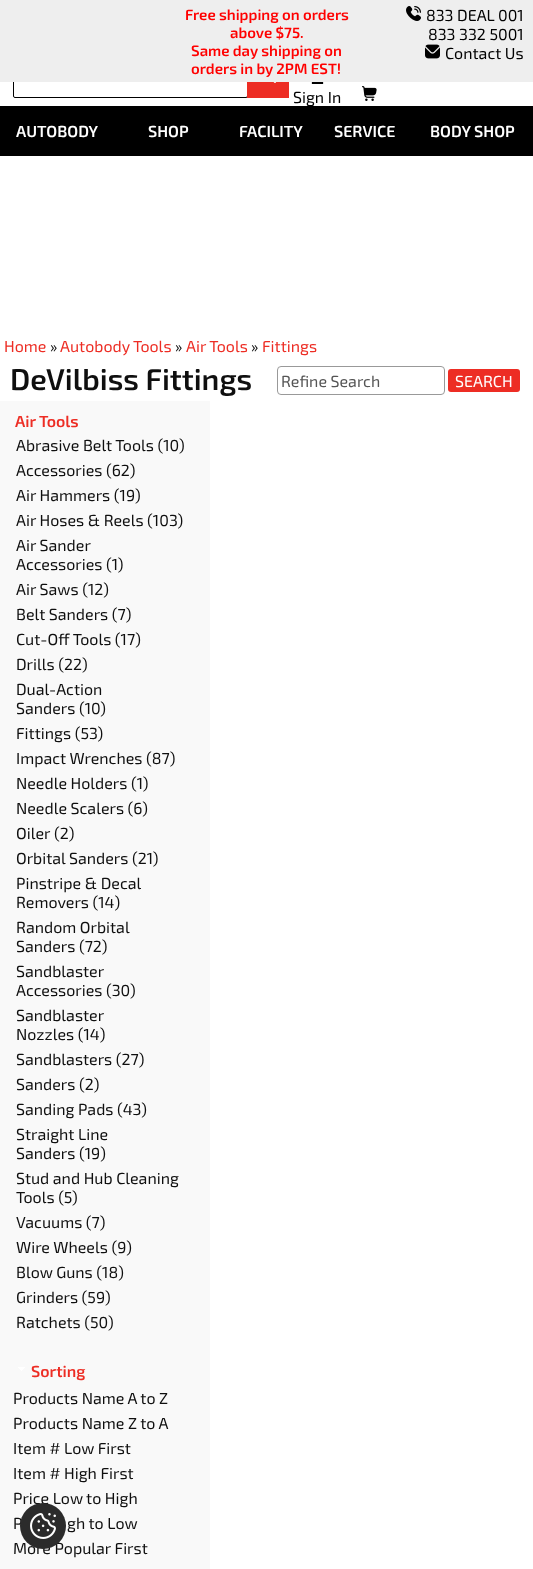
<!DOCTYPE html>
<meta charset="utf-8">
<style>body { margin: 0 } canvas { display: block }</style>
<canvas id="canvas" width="533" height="1569"></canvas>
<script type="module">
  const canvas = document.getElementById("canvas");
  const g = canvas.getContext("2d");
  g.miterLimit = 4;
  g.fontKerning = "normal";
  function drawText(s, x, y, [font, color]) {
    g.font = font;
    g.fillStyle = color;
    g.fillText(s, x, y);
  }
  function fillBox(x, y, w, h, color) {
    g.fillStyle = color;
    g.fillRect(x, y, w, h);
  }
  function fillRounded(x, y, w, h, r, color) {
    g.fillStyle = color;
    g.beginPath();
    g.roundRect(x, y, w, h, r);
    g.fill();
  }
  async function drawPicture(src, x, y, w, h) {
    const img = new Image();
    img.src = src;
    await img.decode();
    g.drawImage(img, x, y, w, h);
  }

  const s1 = ["600 15px 'Exo 2'", "#FF0000"];
  const s2 = ["16px 'Exo 2'", "#000000"];
  const s3 = ["600 16px 'Exo 2'", "#FFFFFF"];
  const s4 = ["16px 'Exo 2'", "#ED2D24"];
  const s5 = ["15px 'Exo 2'", "#0F0F0F"];
  const s6 = ["600 30px 'Exo 2'", "#0F0F0F"];
  const s7 = ["16px 'Exo 2'", "#555555"];
  const s8 = ["16px 'Exo 2'", "#FFFFFF"];
  const s9 = ["600 16px 'Exo 2'", "#ED2D24"];
  const s10 = ["16px 'Exo 2'", "#0F0F0F"];

  fillBox(0, 0, 533, 1569, "#FFFFFF");
  g.beginPath();
  g.roundRect(13.5, 57.5, 234, 40, 1.5);
  g.strokeStyle = "#000000";
  g.stroke();
  fillBox(0, 0, 533, 82, "#EEEEEE");
  drawText("Free shipping on orders", 185, 20, s1);
  drawText("above $75.", 230, 38, s1);
  drawText("Same day shipping on", 191, 56, s1);
  drawText("orders in by 2PM EST!", 191, 74, s1);
  await drawPicture("pic1.png", 406, 6, 15, 15);
  drawText("833 DEAL 001", 426, 21, s2);
  drawText("833 332 5001", 428, 40, s2);
  await drawPicture("pic2.png", 425, 44, 15, 15);
  drawText("Contact Us", 445, 59, s2);
  fillBox(247, 82, 42, 16, "#ED2D24");
  await drawPicture("pic3.png", 273, 82, 3, 1);
  await drawPicture("pic4.png", 311, 82, 13, 2);
  fillBox(0, 106, 533, 50, "#000000");
  drawText("Sign In", 293, 103, s2);
  await drawPicture("pic5.png", 362, 86, 15, 15);
  drawText("AUTOBODY", 16, 137, s3);
  drawText("SHOP", 148, 137, s3);
  drawText("FACILITY", 239, 137, s3);
  drawText("SERVICE", 334, 137, s3);
  drawText("BODY SHOP", 430, 137, s3);
  drawText("Home", 4, 352, s4);
  drawText("»", 50, 352, s5);
  drawText("Autobody Tools", 60, 352, s4);
  drawText("»", 175, 352, s5);
  drawText("Air Tools", 186, 352, s4);
  drawText("»", 251, 352, s5);
  drawText("Fittings", 262, 352, s4);
  drawText("DeVilbiss Fittings", 10, 390, s6);
  g.beginPath();
  g.roundRect(277.5, 366.5, 167, 28, 3.5);
  g.strokeStyle = "#999999";
  g.stroke();
  drawText("Refine Search", 281, 387, s7);
  fillRounded(448, 369, 72, 23, 3, "#ED2D24");
  drawText("SEARCH", 455, 387, s8);
  fillBox(0, 401, 210, 1168, "#F9F9F9");
  drawText("Air Tools", 15, 427, s9);
  drawText("Abrasive Belt Tools (10)", 16, 451, s10);
  drawText("Accessories (62)", 16, 476, s10);
  drawText("Air Hammers (19)", 16, 501, s10);
  drawText("Air Hoses & Reels (103)", 16, 526, s10);
  drawText("Air Sander", 16, 551, s10);
  drawText("Accessories (1)", 16, 570, s10);
  drawText("Air Saws (12)", 16, 595, s10);
  drawText("Belt Sanders (7)", 16, 620, s10);
  drawText("Cut-Off Tools (17)", 16, 645, s10);
  drawText("Drills (22)", 16, 670, s10);
  drawText("Dual-Action", 16, 695, s10);
  drawText("Sanders (10)", 16, 714, s10);
  drawText("Fittings (53)", 16, 739, s10);
  drawText("Impact Wrenches (87)", 16, 764, s10);
  drawText("Needle Holders (1)", 16, 789, s10);
  drawText("Needle Scalers (6)", 16, 814, s10);
  drawText("Oiler", 16, 839, s10);
  drawText("(2)", 54, 839, s10);
  drawText("Orbital Sanders (21)", 16, 864, s10);
  drawText("Pinstripe & Decal", 16, 889, s10);
  drawText("Removers (14)", 16, 908, s10);
  drawText("Random Orbital", 16, 933, s10);
  drawText("Sanders (72)", 16, 952, s10);
  drawText("Sandblaster", 16, 977, s10);
  drawText("Accessories (30)", 16, 996, s10);
  drawText("Sandblaster", 16, 1021, s10);
  drawText("Nozzles (14)", 16, 1040, s10);
  drawText("Sandblasters (27)", 16, 1065, s10);
  drawText("Sanders (2)", 16, 1090, s10);
  drawText("Sanding Pads (43)", 16, 1115, s10);
  drawText("Straight Line", 16, 1140, s10);
  drawText("Sanders (19)", 16, 1159, s10);
  drawText("Stud and Hub Cleaning", 16, 1184, s10);
  drawText("Tools (5)", 16, 1203, s10);
  drawText("Vacuums (7)", 16, 1228, s10);
  drawText("Wire Wheels (9)", 16, 1253, s10);
  drawText("Blow Guns (18)", 16, 1278, s10);
  drawText("Grinders (59)", 16, 1303, s10);
  drawText("Ratchets (50)", 16, 1328, s10);
  await drawPicture("pic6.png", 18, 1367, 7, 4);
  drawText("Sorting", 31, 1377, s9);
  drawText("Products Name A to Z", 13, 1404, s10);
  drawText("Products Name Z to A", 13, 1429, s10);
  drawText("Item # Low First", 13, 1454, s10);
  drawText("Item # High First", 13, 1479, s10);
  drawText("Price Low to High", 13, 1504, s10);
  drawText("P", 13, 1529, s10);
  drawText("gh to Low", 67, 1529, s10);
  drawText("More Popular First", 13, 1554, s10);
  g.fillStyle = "#2B2B2B";
  g.beginPath();
  g.arc(43, 1526, 23, 0, Math.PI * 2);
  g.fill();
  await drawPicture("pic7.png", 30, 1513, 26, 26);
</script>
